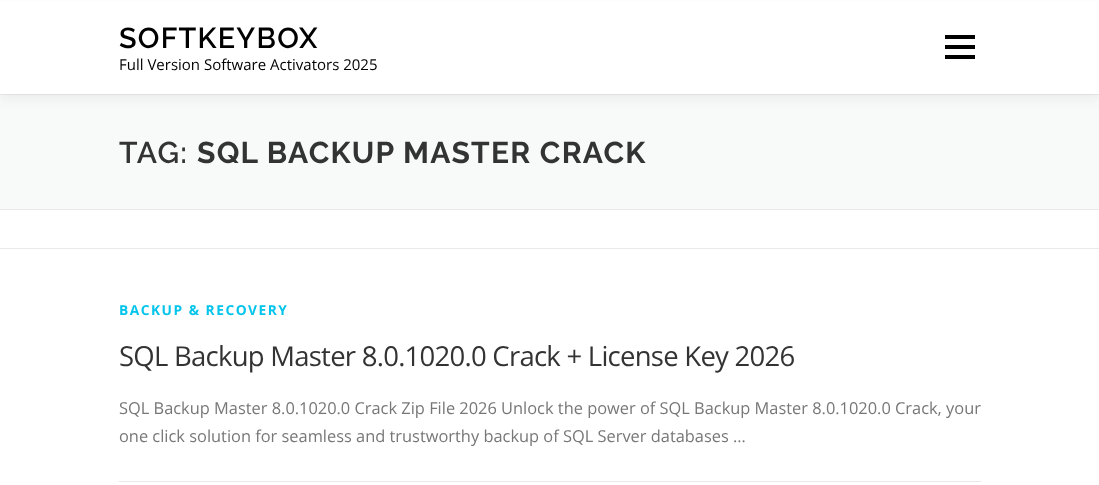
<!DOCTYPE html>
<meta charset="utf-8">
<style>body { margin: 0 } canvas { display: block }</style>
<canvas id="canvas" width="1099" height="485"></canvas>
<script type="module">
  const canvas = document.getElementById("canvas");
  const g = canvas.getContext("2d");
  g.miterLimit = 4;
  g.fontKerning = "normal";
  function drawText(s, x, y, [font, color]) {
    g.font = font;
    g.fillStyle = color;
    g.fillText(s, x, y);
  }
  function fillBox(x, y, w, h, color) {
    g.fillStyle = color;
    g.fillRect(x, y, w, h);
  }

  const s1 = ["600 28.75px Raleway", "#000000"];
  const s2 = ["15px Open Sans", "#000000"];
  const s3 = ["600 30px Raleway", "#333333"];
  const s4 = ["bold 30px Raleway", "#333333"];
  const s5 = ["bold 13.75px Open Sans", "#03C4EB"];
  const s6 = ["27.5px Open Sans", "#333333"];
  const s7 = ["16.4px Open Sans", "#777777"];

  fillBox(0, 0, 1099, 485, "#FFFFFF");
  fillBox(0, 95, 1099, 114, "#F8F9F9");
  fillBox(0, 94, 1099, 1, "#E9E9E9");
  g.fillStyle = "rgba(50, 50, 50, 0.06)";
  g.filter = "blur(6px)";
  g.beginPath();
  g.rect(0, 6, 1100, 94);
  g.fill();
  g.filter = "none";
  fillBox(0, 1, 1099, 93, "#FFFFFF");
  g.letterSpacing = "1.25px";
  drawText("SOFTKEYBOX", 119, 48, s1);
  g.letterSpacing = "0px";
  drawText("Full Version Software Activators 2025", 119, 70, s2);
  fillBox(945, 45, 30, 4, "#000000");
  fillBox(945, 35, 30, 4, "#000000");
  fillBox(945, 55, 30, 4, "#000000");
  fillBox(0, 209, 1099, 1, "#E9E9E9");
  g.letterSpacing = "1.25px";
  drawText("TAG:", 119, 163, s3);
  drawText("SQL BACKUP MASTER CRACK", 197, 163, s4);
  fillBox(0, 248, 1099, 1, "#E9E9E9");
  fillBox(119, 481, 862, 1, "#E9E9E9");
  g.letterSpacing = "1.5px";
  drawText("BACKUP & RECOVERY", 119, 315, s5);
  g.letterSpacing = "-0.75px";
  drawText("SQL Backup Master 8.0.1020.0 Crack + License Key 2026", 119, 366, s6);
  g.letterSpacing = "0px";
  drawText("SQL Backup Master 8.0.1020.0 Crack Zip File 2026 Unlock the power of SQL Backup Master 8.0.1020.0 Crack, your", 119, 414, s7);
  drawText("one click solution for seamless and trustworthy backup of SQL Server databases …", 119, 442, s7);
</script>
